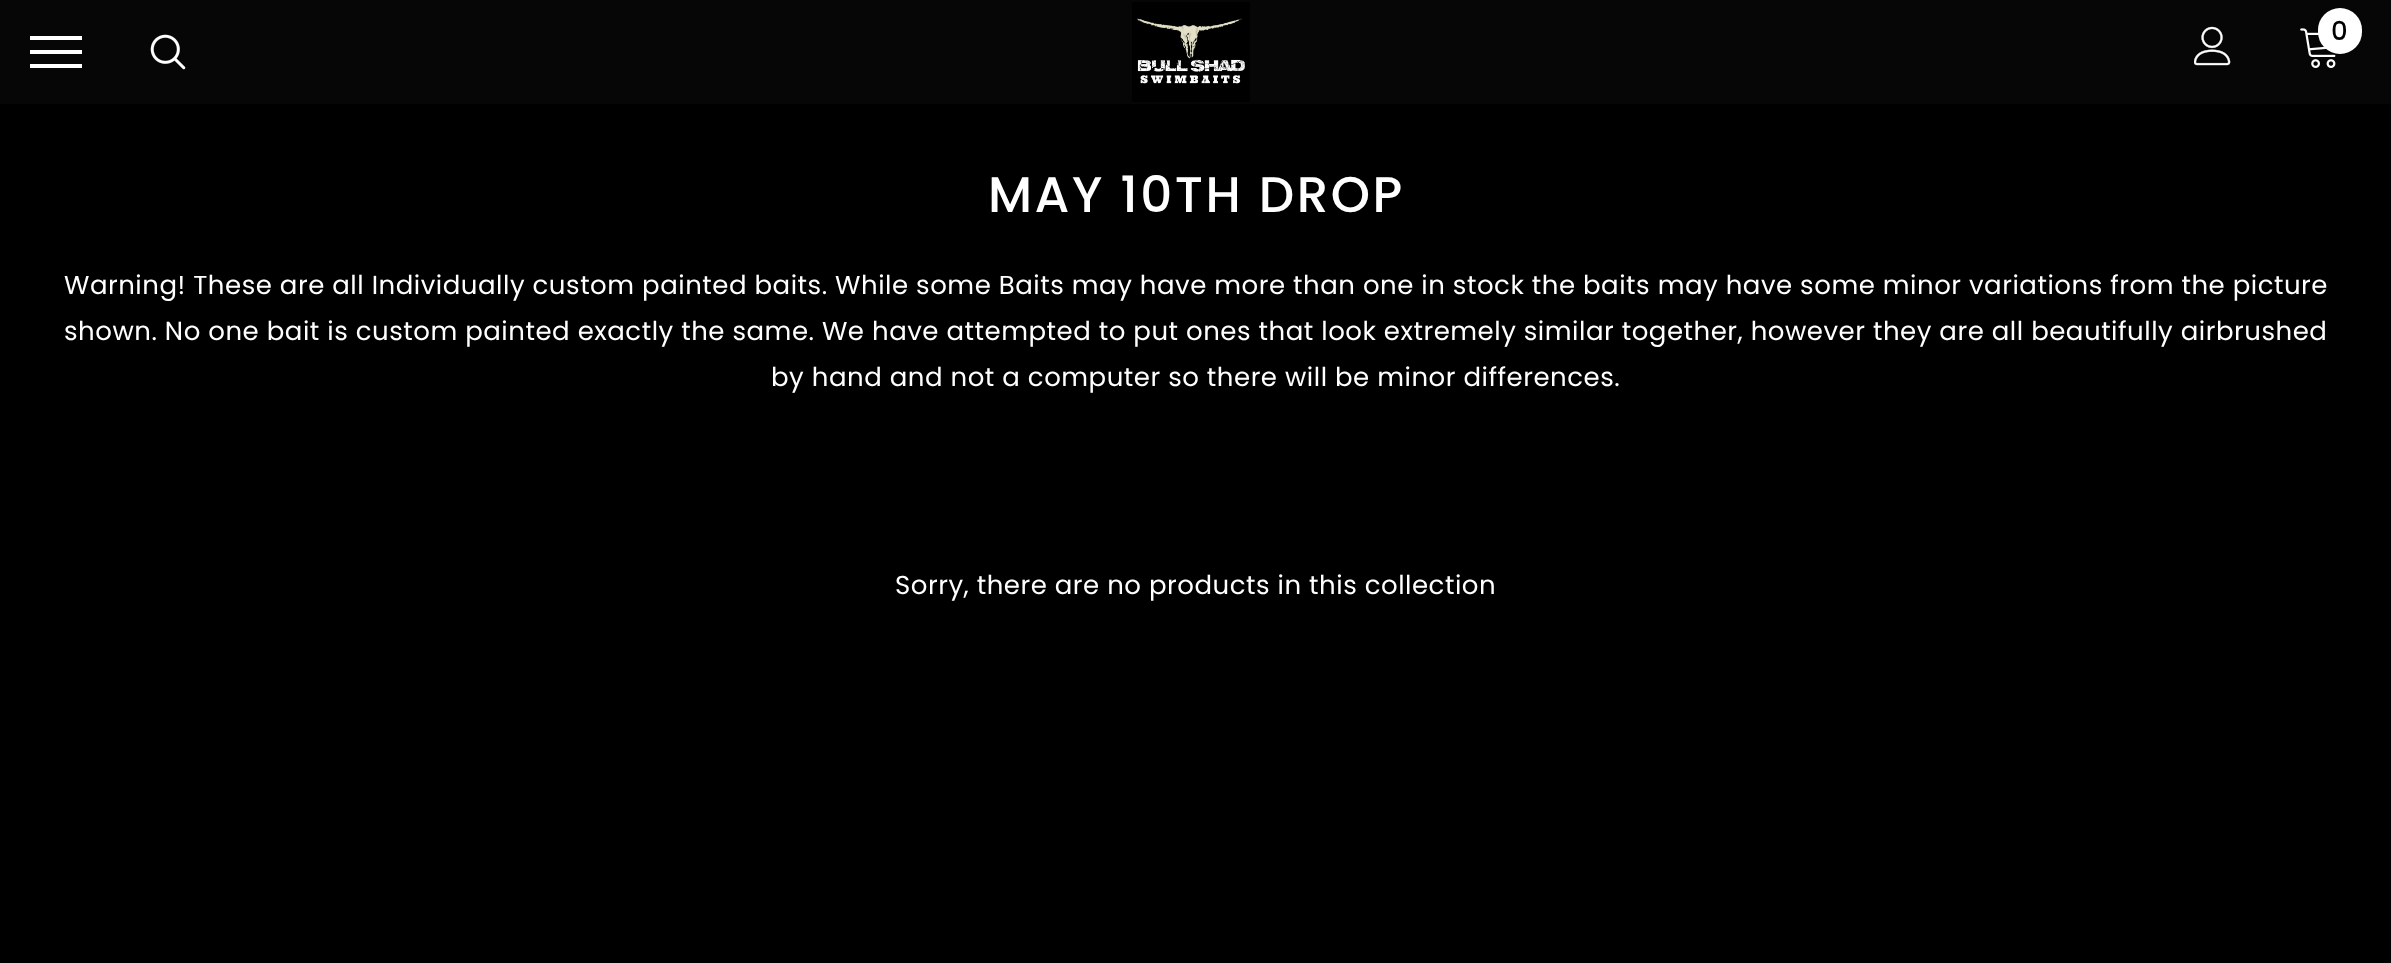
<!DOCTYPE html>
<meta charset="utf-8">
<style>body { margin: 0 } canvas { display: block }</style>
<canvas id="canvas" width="2391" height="963"></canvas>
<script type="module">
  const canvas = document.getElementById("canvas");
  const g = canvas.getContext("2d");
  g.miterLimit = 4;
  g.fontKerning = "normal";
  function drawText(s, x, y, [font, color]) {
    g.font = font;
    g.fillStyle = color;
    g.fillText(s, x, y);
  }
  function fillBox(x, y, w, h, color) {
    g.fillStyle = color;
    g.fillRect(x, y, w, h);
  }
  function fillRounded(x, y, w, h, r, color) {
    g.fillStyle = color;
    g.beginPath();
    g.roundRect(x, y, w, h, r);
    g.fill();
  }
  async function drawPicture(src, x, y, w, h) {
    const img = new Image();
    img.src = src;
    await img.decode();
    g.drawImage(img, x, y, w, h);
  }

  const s1 = ["500 26px Poppins", "#000000"];
  const s2 = ["500 50px Poppins", "#FFFFFF"];
  const s3 = ["26px Poppins", "#FFFFFF"];

  fillBox(0, 0, 2391, 963, "#000000");
  fillBox(0, 0, 2391, 104, "#070606");
  await drawPicture("pic1.png", 1132, 2, 118, 100);
  await drawPicture("pic2.png", 2194, 26, 37, 40);
  await drawPicture("pic3.png", 2300, 28, 36, 40);
  fillRounded(2318, 8, 44, 46, 22, "#FFFFFF");
  g.letterSpacing = "0.52px";
  drawText("0", 2331, 40, s1);
  fillBox(30, 50, 52, 4, "#FFFFFF");
  fillBox(30, 36, 52, 4, "#FFFFFF");
  fillBox(30, 64, 52, 4, "#FFFFFF");
  await drawPicture("pic4.png", 150, 34, 36, 36);
  g.letterSpacing = "2.5px";
  drawText("MAY 10TH DROP", 988, 212, s2);
  g.letterSpacing = "0.52px";
  drawText("Warning! These are all Individually custom painted baits. While some Baits may have more than one in stock the baits may have some minor variations from the picture", 64, 294, s3);
  drawText("shown. No one bait is custom painted exactly the same. We have attempted to put ones that look extremely similar together, however they are all beautifully airbrushed", 64, 340, s3);
  drawText("by hand and not a computer so there will be minor differences.", 771, 386, s3);
  drawText("Sorry, there are no products in this collection", 895, 594, s3);
</script>
